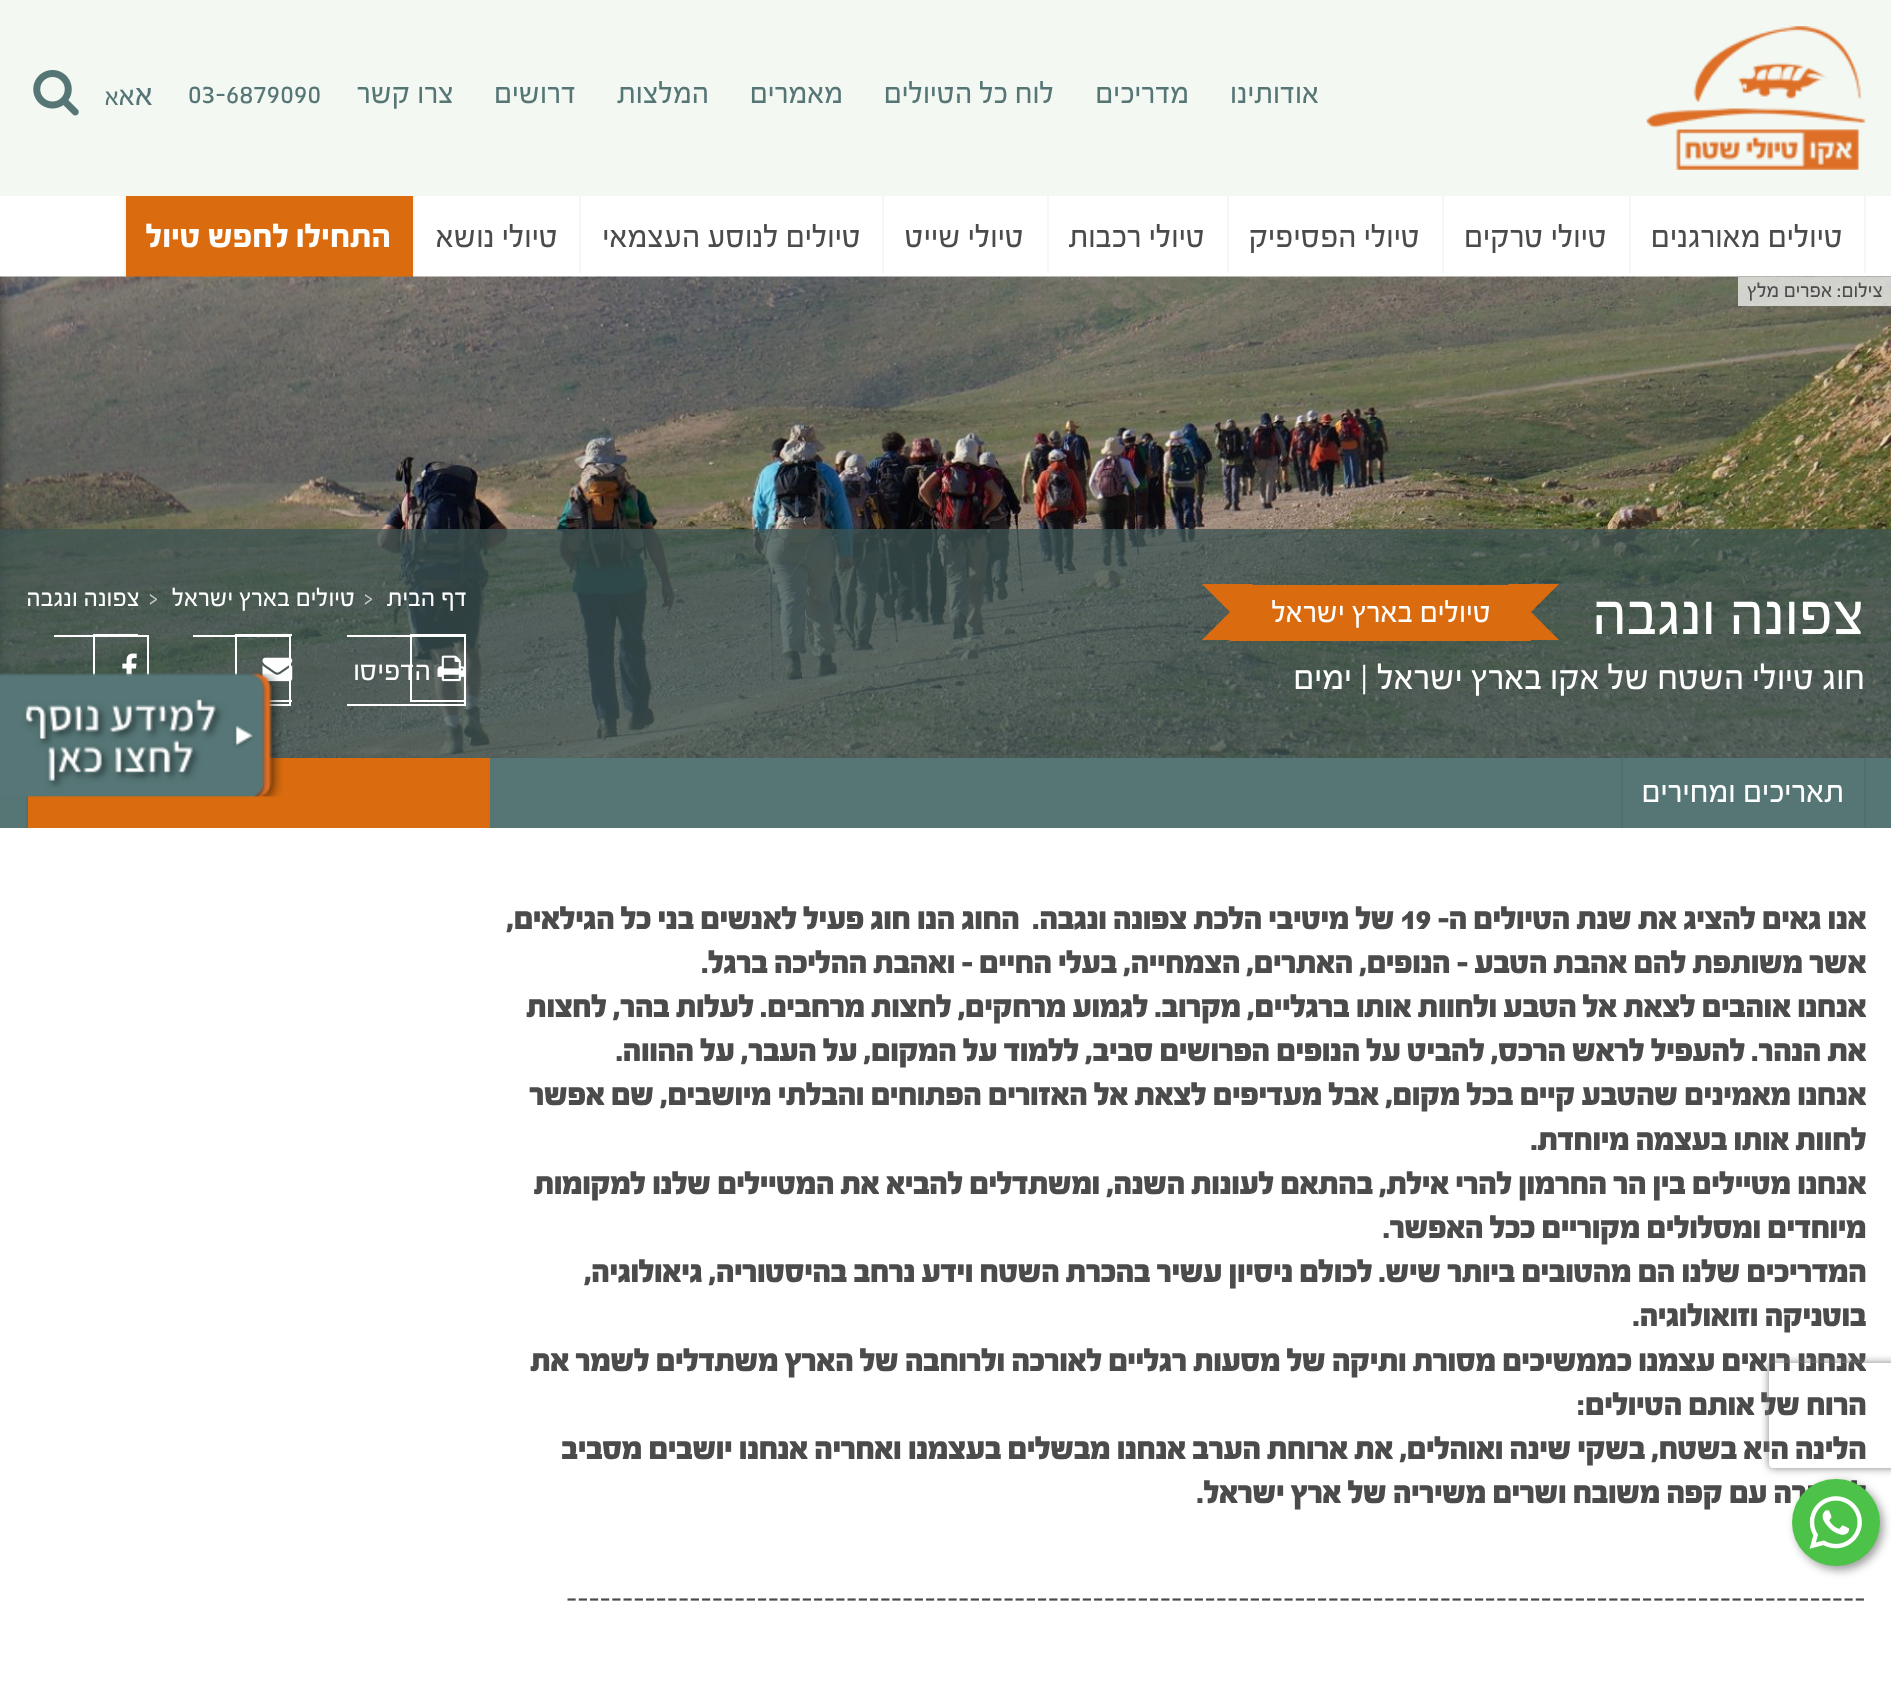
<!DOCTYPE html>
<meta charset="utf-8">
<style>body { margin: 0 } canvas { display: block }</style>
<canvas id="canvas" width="1891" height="1684"></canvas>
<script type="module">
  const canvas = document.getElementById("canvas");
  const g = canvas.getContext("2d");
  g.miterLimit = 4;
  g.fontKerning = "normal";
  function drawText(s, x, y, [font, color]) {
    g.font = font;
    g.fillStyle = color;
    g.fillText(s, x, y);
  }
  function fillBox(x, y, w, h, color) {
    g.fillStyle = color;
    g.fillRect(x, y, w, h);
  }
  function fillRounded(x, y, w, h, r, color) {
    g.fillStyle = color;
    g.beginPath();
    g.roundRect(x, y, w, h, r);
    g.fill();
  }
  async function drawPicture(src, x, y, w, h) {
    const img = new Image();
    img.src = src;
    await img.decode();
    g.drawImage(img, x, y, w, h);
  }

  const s1 = ["31.5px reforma", "#567676"];
  const s2 = ["33.25px reforma", "#567676"];
  const s3 = ["30px reforma", "#567676"];
  const s4 = ["26.25px reforma", "#567676"];
  const s5 = ["33.25px reforma", "#4B4B4B"];
  const s6 = ["35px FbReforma", "#FFFFFF"];
  const s7 = ["21px reforma", "#4B4B4B"];
  const s8 = ["63px reforma", "#FFFFFF"];
  const s9 = ["31.5px reforma", "#FFFFFF"];
  const s10 = ["36.75px reforma", "#FFFFFF"];
  const s11 = ["26.25px reforma", "#FFFFFF"];
  const s12 = ["26.25px reforma", "#CCCCCC"];
  const s13 = ["30px reforma", "#FFFFFF"];
  const s14 = ["33.25px reforma", "#FFFFFF"];
  const s15 = ["bold 32.65px FbReforma", "#4B4B4B"];

  fillBox(0, 0, 1891, 1684, "#FFFFFF");
  fillBox(0, 0, 1891, 196, "#F3F8F3");
  await drawPicture("pic1.png", 1646, 26, 220, 144);
  g.direction = "rtl";
  drawText("אודותינו", 1319, 103, s1);
  drawText("מדריכים", 1189, 103, s1);
  drawText("לוח כל הטיולים", 1054, 103, s1);
  drawText("מאמרים", 843, 103, s1);
  drawText("המלצות", 709, 103, s1);
  drawText("דרושים", 576, 103, s1);
  drawText("צרו קשר", 454, 103, s1);
  g.direction = "ltr";
  drawText("03-6879090", 188, 103, s1);
  g.direction = "rtl";
  drawText("א", 153, 105, s2);
  drawText("א", 135, 105, s3);
  drawText("א", 119, 105, s4);
  await drawPicture("pic2.png", 33, 70, 46, 46);
  fillBox(1864, 196, 2, 77, "#F3F8F3");
  drawText("טיולים מאורגנים", 1843, 247, s5);
  fillBox(1629, 196, 2, 77, "#F3F8F3");
  drawText("טיולי טרקים", 1607, 247, s5);
  fillBox(1442, 196, 2, 77, "#F3F8F3");
  drawText("טיולי הפסיפיק", 1420, 247, s5);
  fillBox(1227, 196, 2, 77, "#F3F8F3");
  drawText("טיולי רכבות", 1205, 247, s5);
  fillBox(1047, 196, 2, 77, "#F3F8F3");
  drawText("טיולי שייט", 1024, 247, s5);
  fillBox(882, 196, 2, 77, "#F3F8F3");
  drawText("טיולים לנוסע העצמאי", 861, 247, s5);
  fillBox(579, 196, 2, 77, "#F3F8F3");
  drawText("טיולי נושא", 558, 247, s5);
  fillBox(413, 196, 2, 77, "#F3F8F3");
  fillBox(126, 196, 287, 81, "#DA6C0F");
  drawText("התחילו לחפש טיול", 391, 247, s6);
  fillBox(124, 196, 2, 81, "#F3F8F3");
  fillBox(0, 757, 1891, 71, "#567676");
  await drawPicture("pic3.png", 0, 276, 1891, 482);
  fillBox(1738, 277, 153, 29, "rgba(255, 255, 255, 0.7)");
  drawText("צילום: אפרים מלץ", 1883, 297, s7);
  fillBox(0, 529, 1891, 229, "rgba(61, 84, 84, 0.75)");
  drawText("צפונה ונגבה", 1865, 634, s8);
  fillBox(1253, 585, 256, 56, "#DA6C0F");
  g.beginPath();
  g.moveTo(1508, 584);
  g.lineTo(1559, 584);
  g.lineTo(1531, 612);
  g.closePath();
  g.moveTo(1559, 640);
  g.lineTo(1508, 640);
  g.lineTo(1531, 612);
  g.closePath();
  g.fill();
  fillBox(1509, 585, 22, 56, "#DA6C0F");
  drawText("טיולים בארץ ישראל", 1491, 622, s9);
  g.fillStyle = "#DA6C0F";
  g.beginPath();
  g.moveTo(1202, 584);
  g.lineTo(1253, 584);
  g.lineTo(1230, 612);
  g.closePath();
  g.fill();
  fillBox(1230, 585, 23, 56, "#DA6C0F");
  g.beginPath();
  g.moveTo(1253, 640);
  g.lineTo(1202, 640);
  g.lineTo(1230, 612);
  g.closePath();
  g.fill();
  drawText("חוג טיולי השטח של אקו בארץ ישראל |", 1865, 689, s10);
  drawText("ימים", 1352, 689, s10);
  drawText("דף הבית", 467, 606, s11);
  g.direction = "ltr";
  drawText(">", 364, 606, s12);
  g.direction = "rtl";
  drawText("טיולים בארץ ישראל", 355, 606, s11);
  g.direction = "ltr";
  drawText(">", 149, 606, s12);
  g.direction = "rtl";
  drawText("צפונה ונגבה", 140, 606, s11);
  fillBox(410, 634, 56, 1, "#FFFFFF");
  fillBox(410, 700, 56, 2, "#FFFFFF");
  fillBox(410, 634, 2, 68, "#FFFFFF");
  fillBox(347, 635, 119, 2, "#FFFFFF");
  fillBox(464, 635, 2, 70, "#FFFFFF");
  fillBox(347, 704, 119, 2, "#FFFFFF");
  await drawPicture("pic4.png", 437, 655, 27, 27);
  drawText("הדפיסו", 431, 680, s13);
  fillBox(235, 634, 57, 2, "#FFFFFF");
  fillBox(269, 700, 23, 2, "#FFFFFF");
  fillBox(235, 634, 2, 42, "#FFFFFF");
  fillBox(193, 635, 98, 2, "#FFFFFF");
  fillBox(289, 635, 2, 70, "#FFFFFF");
  fillBox(269, 704, 22, 2, "#FFFFFF");
  await drawPicture("pic5.png", 262, 657, 31, 25);
  fillBox(93, 634, 45, 1, "#FFFFFF");
  fillBox(93, 634, 2, 42, "#FFFFFF");
  fillBox(54, 635, 95, 2, "#FFFFFF");
  fillBox(147, 635, 2, 41, "#FFFFFF");
  await drawPicture("pic6.png", 122, 653, 15, 23);
  fillBox(1864, 758, 2, 70, "#516F6F");
  drawText("תאריכים ומחירים", 1844, 802, s14);
  fillBox(1621, 758, 2, 70, "#516F6F");
  fillBox(28, 758, 462, 70, "#DA6C0F");
  fillBox(26, 795, 2, 33, "#516F6F");
  await drawPicture("pic7.png", 0, 673, 283, 124);
  drawText("אנו גאים להציג את שנת הטיולים ה-", 1866, 929, s15);
  g.direction = "ltr";
  drawText("19", 1400, 929, s15);
  g.direction = "rtl";
  drawText("של מיטיבי הלכת צפונה ונגבה.  החוג הנו חוג פעיל לאנשים בני כל הגילאים,", 1394, 929, s15);
  drawText("אשר משותפת להם אהבת הטבע - הנופים, האתרים, הצמחייה, בעלי החיים - ואהבת ההליכה ברגל.", 1866, 973, s15);
  drawText("אנחנו אוהבים לצאת אל הטבע ולחוות אותו ברגליים, מקרוב. לגמוע מרחקים, לחצות מרחבים. לעלות בהר, לחצות", 1866, 1017, s15);
  drawText("את הנהר. להעפיל לראש הרכס, להביט על הנופים הפרושים סביב, ללמוד על המקום, על העבר, על ההווה.", 1866, 1061, s15);
  drawText("אנחנו מאמינים שהטבע קיים בכל מקום, אבל מעדיפים לצאת אל האזורים הפתוחים והבלתי מיושבים, שם אפשר", 1866, 1105, s15);
  drawText("לחוות אותו בעצמה מיוחדת.", 1866, 1150, s15);
  drawText("אנחנו מטיילים בין הר החרמון להרי אילת, בהתאם לעונות השנה, ומשתדלים להביא את המטיילים שלנו למקומות", 1866, 1194, s15);
  drawText("מיוחדים ומסלולים מקוריים ככל האפשר.", 1866, 1238, s15);
  drawText("המדריכים שלנו הם מהטובים ביותר שיש. לכולם ניסיון עשיר בהכרת השטח וידע נרחב בהיסטוריה, גיאולוגיה,", 1866, 1282, s15);
  drawText("בוטניקה וזואולוגיה.", 1866, 1326, s15);
  drawText("אנחנו רואים עצמנו כממשיכים מסורת ותיקה של מסעות רגליים לאורכה ולרוחבה של הארץ משתדלים לשמר את", 1866, 1371, s15);
  drawText("הרוח של אותם הטיולים:", 1866, 1415, s15);
  drawText("הלינה היא בשטח, בשקי שינה ואוהלים, את ארוחת הערב אנחנו מבשלים בעצמנו ואחריה אנחנו יושבים מסביב", 1866, 1459, s15);
  drawText("למדורה עם קפה משובח ושרים משיריה של ארץ ישראל.", 1866, 1503, s15);
  g.direction = "ltr";
  drawText("--------------------------------------------------------------------------------------------------------------------", 566, 1608, s5);
  g.save();
  g.beginPath();
  g.moveTo(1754, 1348);
  g.lineTo(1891, 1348);
  g.lineTo(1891, 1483);
  g.lineTo(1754, 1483);
  g.closePath();
  g.moveTo(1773, 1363);
  g.lineTo(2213, 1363);
  g.bezierCurveTo(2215, 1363, 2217, 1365, 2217, 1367);
  g.lineTo(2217, 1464);
  g.bezierCurveTo(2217, 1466, 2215, 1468, 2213, 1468);
  g.lineTo(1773, 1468);
  g.bezierCurveTo(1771, 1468, 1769, 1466, 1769, 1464);
  g.lineTo(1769, 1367);
  g.bezierCurveTo(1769, 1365, 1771, 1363, 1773, 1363);
  g.closePath();
  g.clip("evenodd");
  g.fillStyle = "#808080";
  g.filter = "blur(4.5px)";
  g.beginPath();
  g.roundRect(1769, 1363, 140, 105, 4);
  g.fill();
  g.filter = "none";
  g.restore();
  g.fillStyle = "rgba(0, 0, 0, 0.4)";
  g.filter = "blur(5px)";
  g.beginPath();
  g.roundRect(1796, 1482, 87, 88, 43.5);
  g.fill();
  g.filter = "none";
  fillRounded(1792, 1479, 88, 87, 43.5, "#4DC248");
  await drawPicture("pic8.png", 1809, 1496, 53, 53);
</script>
